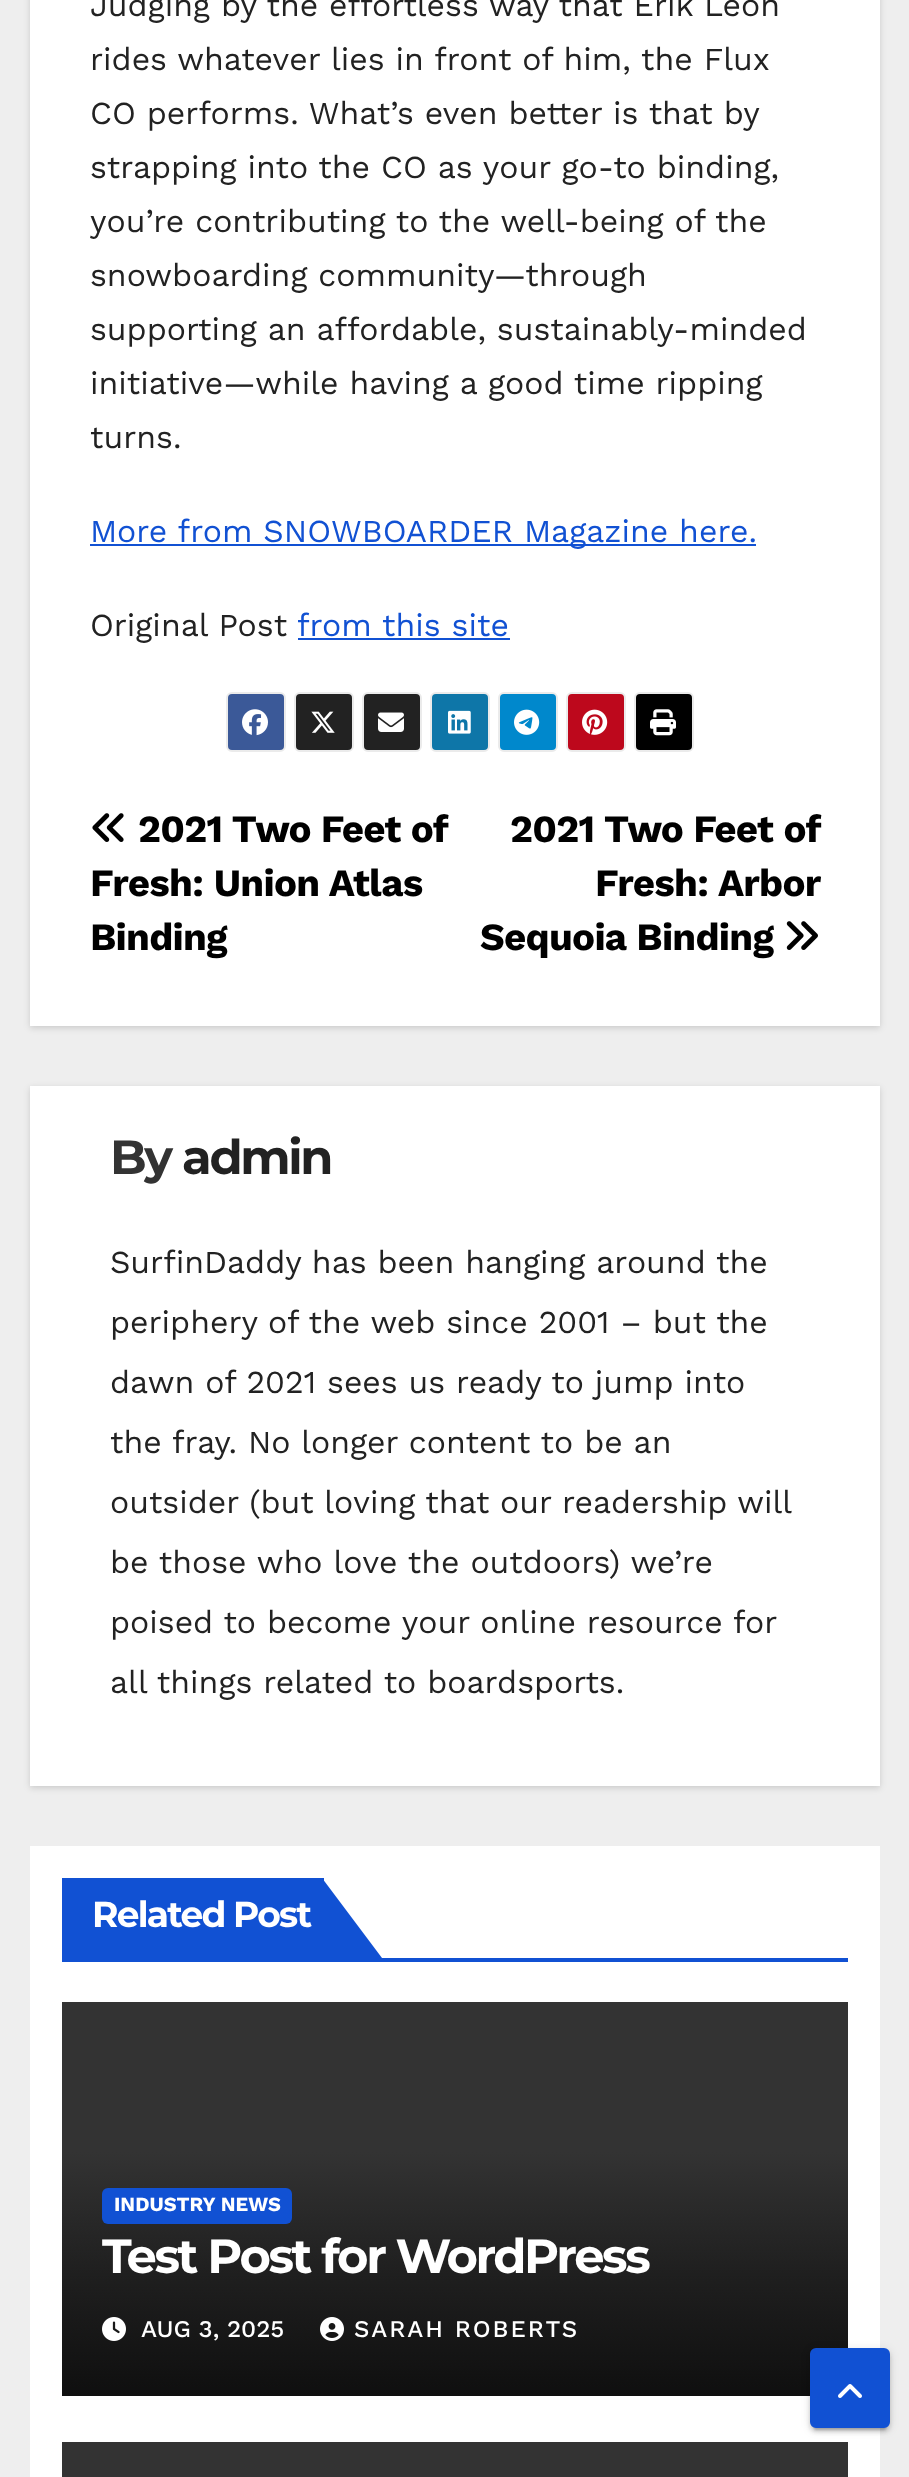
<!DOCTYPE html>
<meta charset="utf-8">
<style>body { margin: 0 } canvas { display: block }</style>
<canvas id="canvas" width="909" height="2477"></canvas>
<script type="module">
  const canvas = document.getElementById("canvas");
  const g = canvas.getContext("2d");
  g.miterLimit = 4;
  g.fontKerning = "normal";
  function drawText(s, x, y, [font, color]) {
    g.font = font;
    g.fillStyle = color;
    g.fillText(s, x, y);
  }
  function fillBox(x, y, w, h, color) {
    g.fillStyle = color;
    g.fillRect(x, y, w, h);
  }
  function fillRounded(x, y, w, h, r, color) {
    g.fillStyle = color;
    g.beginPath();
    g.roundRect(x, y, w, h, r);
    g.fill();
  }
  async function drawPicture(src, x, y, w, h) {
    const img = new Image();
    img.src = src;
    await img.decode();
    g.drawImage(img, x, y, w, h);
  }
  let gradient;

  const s1 = ["32px Work Sans", "#222222"];
  const s2 = ["32px Work Sans", "#1151D3"];
  const s3 = ["bold 38.5px Work Sans", "#000000"];
  const s4 = ["bold 48px Montserrat", "#333333"];
  const s5 = ["bold 48px Montserrat", "#222222"];
  const s6 = ["bold 36px Montserrat", "#FFFFFF"];
  const s7 = ["bold 20px Work Sans", "#FFFFFF"];
  const s8 = ["bold 48px Montserrat", "#FFFFFF"];
  const s9 = ["500 24px Work Sans", "#FFFFFF"];

  fillBox(0, 0, 909, 2477, "#EEEEEE");
  g.fillStyle = "rgba(0, 0, 0, 0.15)";
  g.filter = "blur(3px)";
  g.beginPath();
  g.rect(30, -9, 850, 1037);
  g.fill();
  g.filter = "none";
  fillBox(30, 0, 850, 1026, "#FFFFFF");
  drawText("Judging by the effortless way that Erik Leon", 90, 16, s1);
  drawText("rides whatever lies in front of him, the Flux", 90, 70, s1);
  drawText("CO performs. What’s even better is that by", 90, 124, s1);
  drawText("strapping into the CO as your go-to binding,", 90, 178, s1);
  drawText("you’re contributing to the well-being of the", 90, 232, s1);
  drawText("snowboarding community—through", 90, 286, s1);
  drawText("supporting an affordable, sustainably-minded", 90, 340, s1);
  drawText("initiative—while having a good time ripping", 90, 394, s1);
  drawText("turns.", 90, 448, s1);
  fillBox(90, 544, 666, 2, "#1151D3");
  drawText("More from SNOWBOARDER Magazine here.", 90, 542, s2);
  drawText("Original Post", 90, 636, s1);
  drawText("from this site", 297, 636, s2);
  fillBox(298, 638, 212, 2, "#1151D3");
  g.fillStyle = "#3B5998";
  g.beginPath();
  g.roundRect(227, 693, 58, 58, 5);
  g.fill();
  g.strokeStyle = "#EBEBEB";
  g.lineWidth = 2;
  g.stroke();
  await drawPicture("pic1.png", 242, 709, 26, 27);
  g.fillStyle = "#222222";
  g.beginPath();
  g.roundRect(295, 693, 58, 58, 5);
  g.fill();
  g.stroke();
  await drawPicture("pic2.png", 311, 711, 24, 22);
  g.beginPath();
  g.roundRect(363, 693, 58, 58, 5);
  g.fill();
  g.stroke();
  await drawPicture("pic3.png", 378, 712, 26, 20);
  g.fillStyle = "#0E76A8";
  g.beginPath();
  g.roundRect(431, 693, 58, 58, 5);
  g.fill();
  g.stroke();
  await drawPicture("pic4.png", 448, 710, 23, 24);
  g.fillStyle = "#0088CC";
  g.beginPath();
  g.roundRect(499, 693, 58, 58, 5);
  g.fill();
  g.stroke();
  await drawPicture("pic5.png", 514, 709, 26, 26);
  g.fillStyle = "#BD081C";
  g.beginPath();
  g.roundRect(567, 693, 58, 58, 5);
  g.fill();
  g.stroke();
  await drawPicture("pic6.png", 582, 709, 26, 26);
  g.fillStyle = "#000000";
  g.beginPath();
  g.roundRect(635, 693, 58, 58, 5);
  g.fill();
  g.stroke();
  await drawPicture("pic7.png", 650, 709, 26, 27);
  await drawPicture("pic8.png", 92, 813, 32, 29);
  g.letterSpacing = "-0.75px";
  g.wordSpacing = "-0.25px";
  drawText("2021 Two Feet of", 138, 842, s3);
  g.wordSpacing = "0px";
  drawText("Fresh: Union Atlas", 90, 896, s3);
  drawText("Binding", 90, 950, s3);
  drawText("2021 Two Feet of", 510, 842, s3);
  drawText("Fresh: Arbor", 595, 896, s3);
  drawText("Sequoia Binding", 480, 950, s3);
  await drawPicture("pic9.png", 786, 921, 32, 29);
  g.fillStyle = "rgba(0, 0, 0, 0.15)";
  g.filter = "blur(3px)";
  g.beginPath();
  g.rect(30, 1088, 850, 700);
  g.fill();
  g.filter = "none";
  fillBox(30, 1086, 850, 700, "#FFFFFF");
  g.letterSpacing = "-2.4px";
  drawText("By", 110, 1174, s4);
  drawText("admin", 182, 1174, s5);
  g.letterSpacing = "0px";
  drawText("SurfinDaddy has been hanging around the", 110, 1273, s1);
  drawText("periphery of the web since 2001 – but the", 110, 1333, s1);
  drawText("dawn of 2021 sees us ready to jump into", 110, 1393, s1);
  drawText("the fray. No longer content to be an", 110, 1453, s1);
  g.wordSpacing = "-0.25px";
  drawText("outsider (but loving that our readership will", 110, 1513, s1);
  g.wordSpacing = "0px";
  drawText("be those who love the outdoors) we’re", 110, 1573, s1);
  drawText("poised to become your online resource for", 110, 1633, s1);
  drawText("all things related to boardsports.", 110, 1693, s1);
  fillBox(30, 1846, 850, 631, "#FFFFFF");
  fillBox(62, 1958, 786, 4, "#1151D3");
  fillBox(62, 1878, 262, 80, "#1151D3");
  g.letterSpacing = "-1.75px";
  drawText("Related Post", 92, 1927, s6);
  g.fillStyle = "#1151D3";
  g.beginPath();
  g.moveTo(322, 1958);
  g.lineTo(322, 1878);
  g.lineTo(382, 1958);
  g.closePath();
  g.fill();
  fillBox(62, 2002, 786, 150, "#333333");
  gradient = g.createLinearGradient(455, 2152, 455, 2396);
  gradient.addColorStop(0, "#333333");
  gradient.addColorStop(0.5, "#1F1F1F");
  gradient.addColorStop(1, "#0F0F0F");
  g.fillStyle = gradient;
  g.fillRect(62, 2152, 786, 244);
  fillRounded(102, 2188, 190, 36, 6, "#1151D3");
  g.letterSpacing = "0px";
  drawText("INDUSTRY NEWS", 114, 2211, s7);
  g.letterSpacing = "-2.4px";
  drawText("Test Post for WordPress", 102, 2273, s8);
  await drawPicture("pic10.png", 102, 2317, 24, 24);
  g.letterSpacing = "0px";
  drawText("AUG 3, 2025", 141, 2337, s9);
  await drawPicture("pic11.png", 320, 2317, 24, 24);
  g.letterSpacing = "2px";
  drawText("SARAH ROBERTS", 354, 2337, s9);
  fillBox(62, 2442, 786, 35, "#333333");
  g.fillStyle = "rgba(0, 0, 0, 0.12)";
  g.filter = "blur(5px)";
  g.beginPath();
  g.roundRect(810, 2350, 80, 80, 6);
  g.fill();
  g.filter = "none";
  g.fillStyle = "rgba(0, 0, 0, 0.2)";
  g.filter = "blur(1px)";
  g.beginPath();
  g.roundRect(814, 2358, 72, 72, 2);
  g.fill();
  g.filter = "none";
  g.fillStyle = "rgba(0, 0, 0, 0.14)";
  g.filter = "blur(2px)";
  g.beginPath();
  g.roundRect(810, 2352, 80, 80, 6);
  g.fill();
  g.filter = "none";
  g.fillStyle = "#1151D3";
  g.beginPath();
  g.roundRect(812, 2350, 76, 76, 4);
  g.fill();
  g.strokeStyle = "#1151D3";
  g.lineWidth = 4;
  g.stroke();
  await drawPicture("pic12.png", 838, 2384, 24, 14);
</script>
